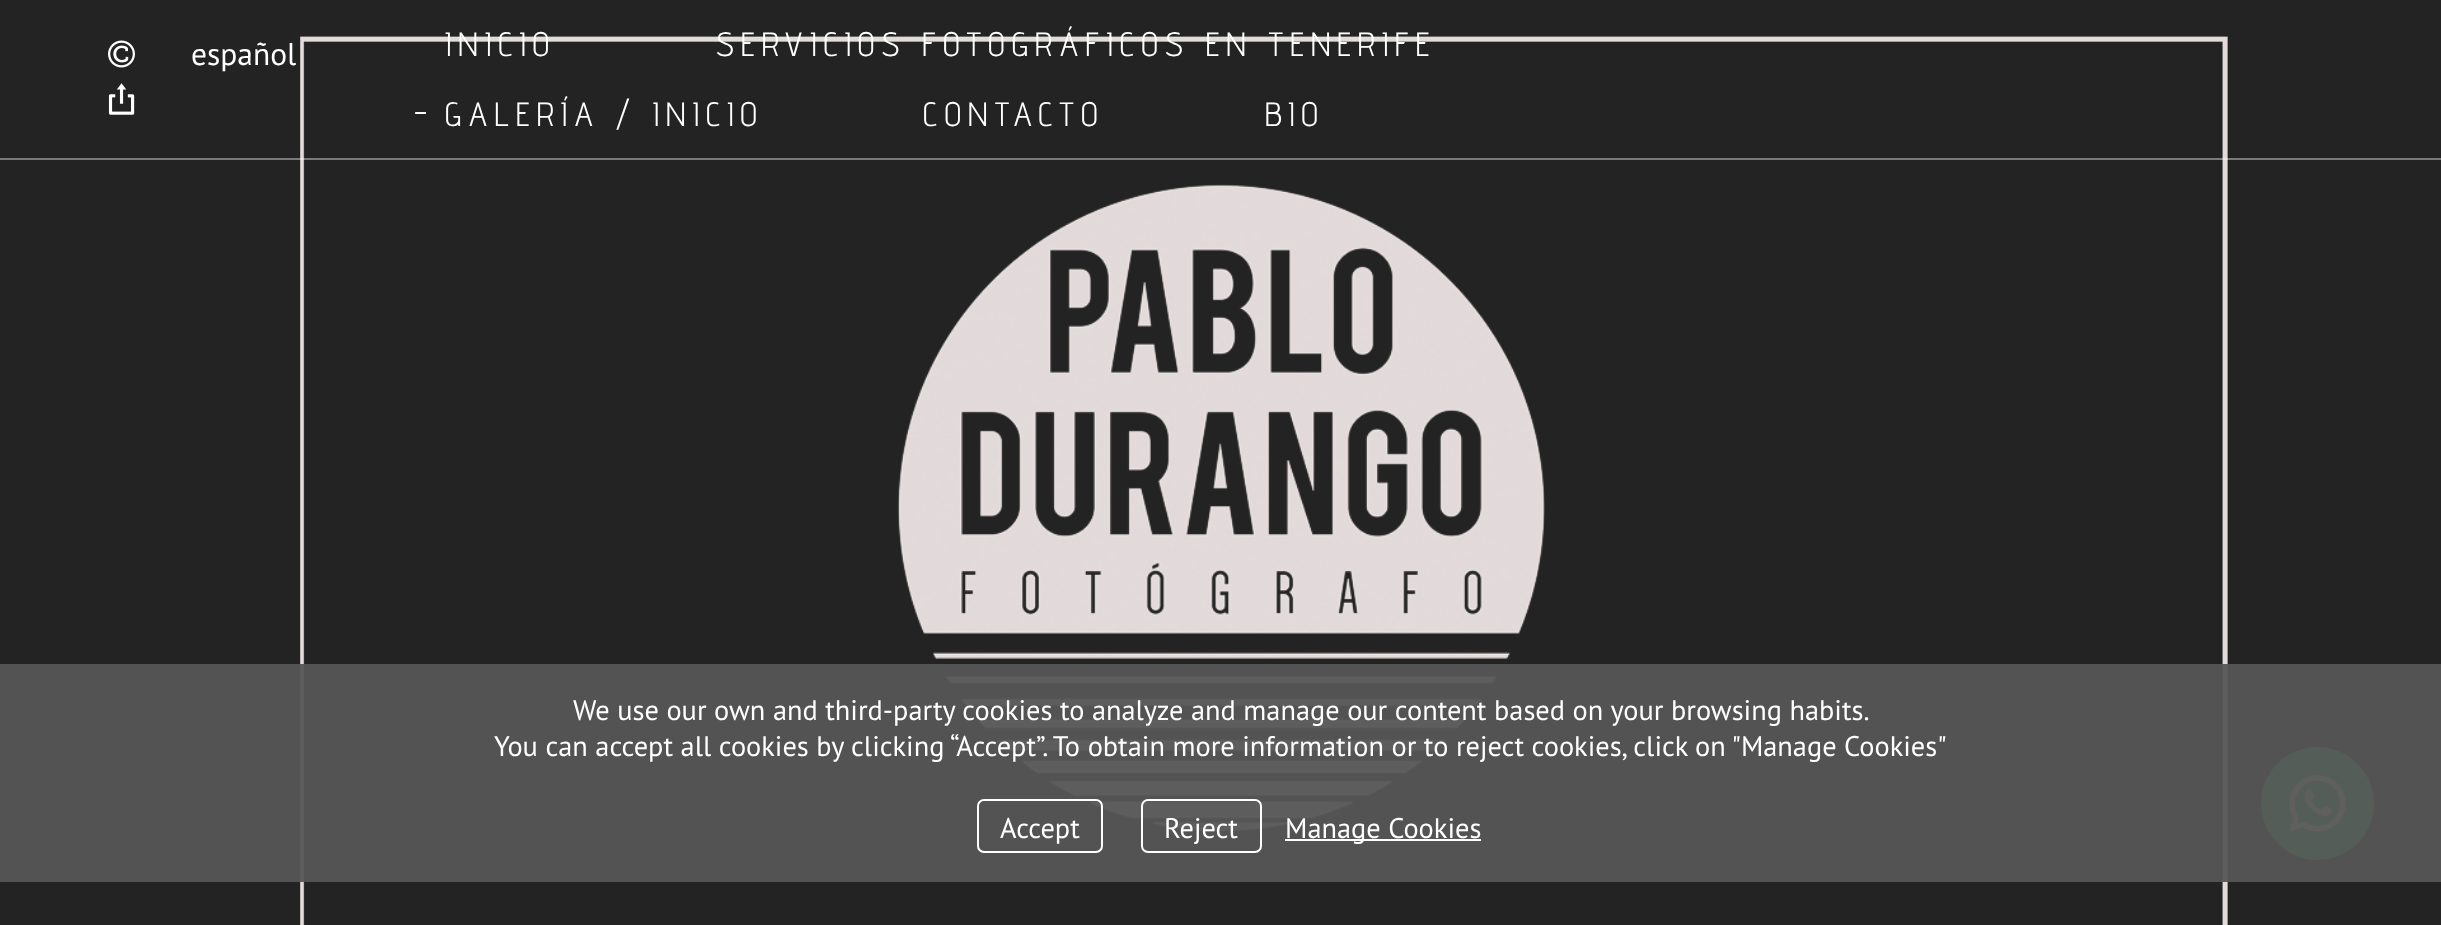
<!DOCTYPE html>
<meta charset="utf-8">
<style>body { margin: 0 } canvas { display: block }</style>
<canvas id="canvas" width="2441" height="925"></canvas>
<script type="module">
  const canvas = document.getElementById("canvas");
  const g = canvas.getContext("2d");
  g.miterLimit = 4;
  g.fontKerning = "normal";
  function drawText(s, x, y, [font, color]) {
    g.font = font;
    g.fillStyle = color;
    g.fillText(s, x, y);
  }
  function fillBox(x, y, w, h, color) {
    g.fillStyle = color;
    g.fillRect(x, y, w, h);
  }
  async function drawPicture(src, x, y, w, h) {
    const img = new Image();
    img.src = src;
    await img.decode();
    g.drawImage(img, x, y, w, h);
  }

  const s1 = ["31.5px PT Sans", "#FFFFFF"];
  const s2 = ["33.75px Advent Pro", "#FFFFFF"];
  const s3 = ["28.35px PT Sans", "#FFFFFF"];

  fillBox(0, 0, 2441, 925, "#FFFFFF");
  await drawPicture("pic1.png", 0, 0, 2441, 925);
  fillBox(0, 158, 2441, 2, "rgba(255, 255, 255, 0.4)");
  await drawPicture("pic2.png", 108, 40, 27, 28);
  await drawPicture("pic3.png", 108, 83, 27, 32);
  drawText("español", 191, 65, s1);
  g.letterSpacing = "6.75px";
  drawText("INICIO", 445, 56, s2);
  drawText("SERVICIOS FOTOGRÁFICOS EN TENERIFE", 716, 56, s2);
  drawText("-", 414, 126, s2);
  drawText("GALERÍA / INICIO", 445, 126, s2);
  drawText("CONTACTO", 923, 126, s2);
  drawText("BIO", 1265, 126, s2);
  g.fillStyle = "#25D366";
  g.beginPath();
  g.arc(2317.5, 803.5, 56.5, 0, Math.PI * 2);
  g.fill();
  await drawPicture("pic4.png", 2289, 775, 57, 57);
  fillBox(0, 664, 2441, 218, "rgba(86, 86, 86, 0.95)");
  g.letterSpacing = "0px";
  drawText("We use our own and third-party cookies to analyze and manage our content based on your browsing habits.", 573, 720, s3);
  drawText("You can accept all cookies by clicking “Accept”. To obtain more information or to reject cookies, click on \"Manage Cookies\"", 494, 756, s3);
  g.beginPath();
  g.roundRect(978, 800, 124, 52, 6);
  g.strokeStyle = "#FFFFFF";
  g.lineWidth = 2;
  g.stroke();
  drawText("Accept", 1000, 838, s3);
  g.beginPath();
  g.roundRect(1142, 800, 119, 52, 6);
  g.stroke();
  drawText("Reject", 1164, 838, s3);
  fillBox(1285, 839, 196, 2, "#FFFFFF");
  drawText("Manage Cookies", 1285, 838, s3);
</script>
